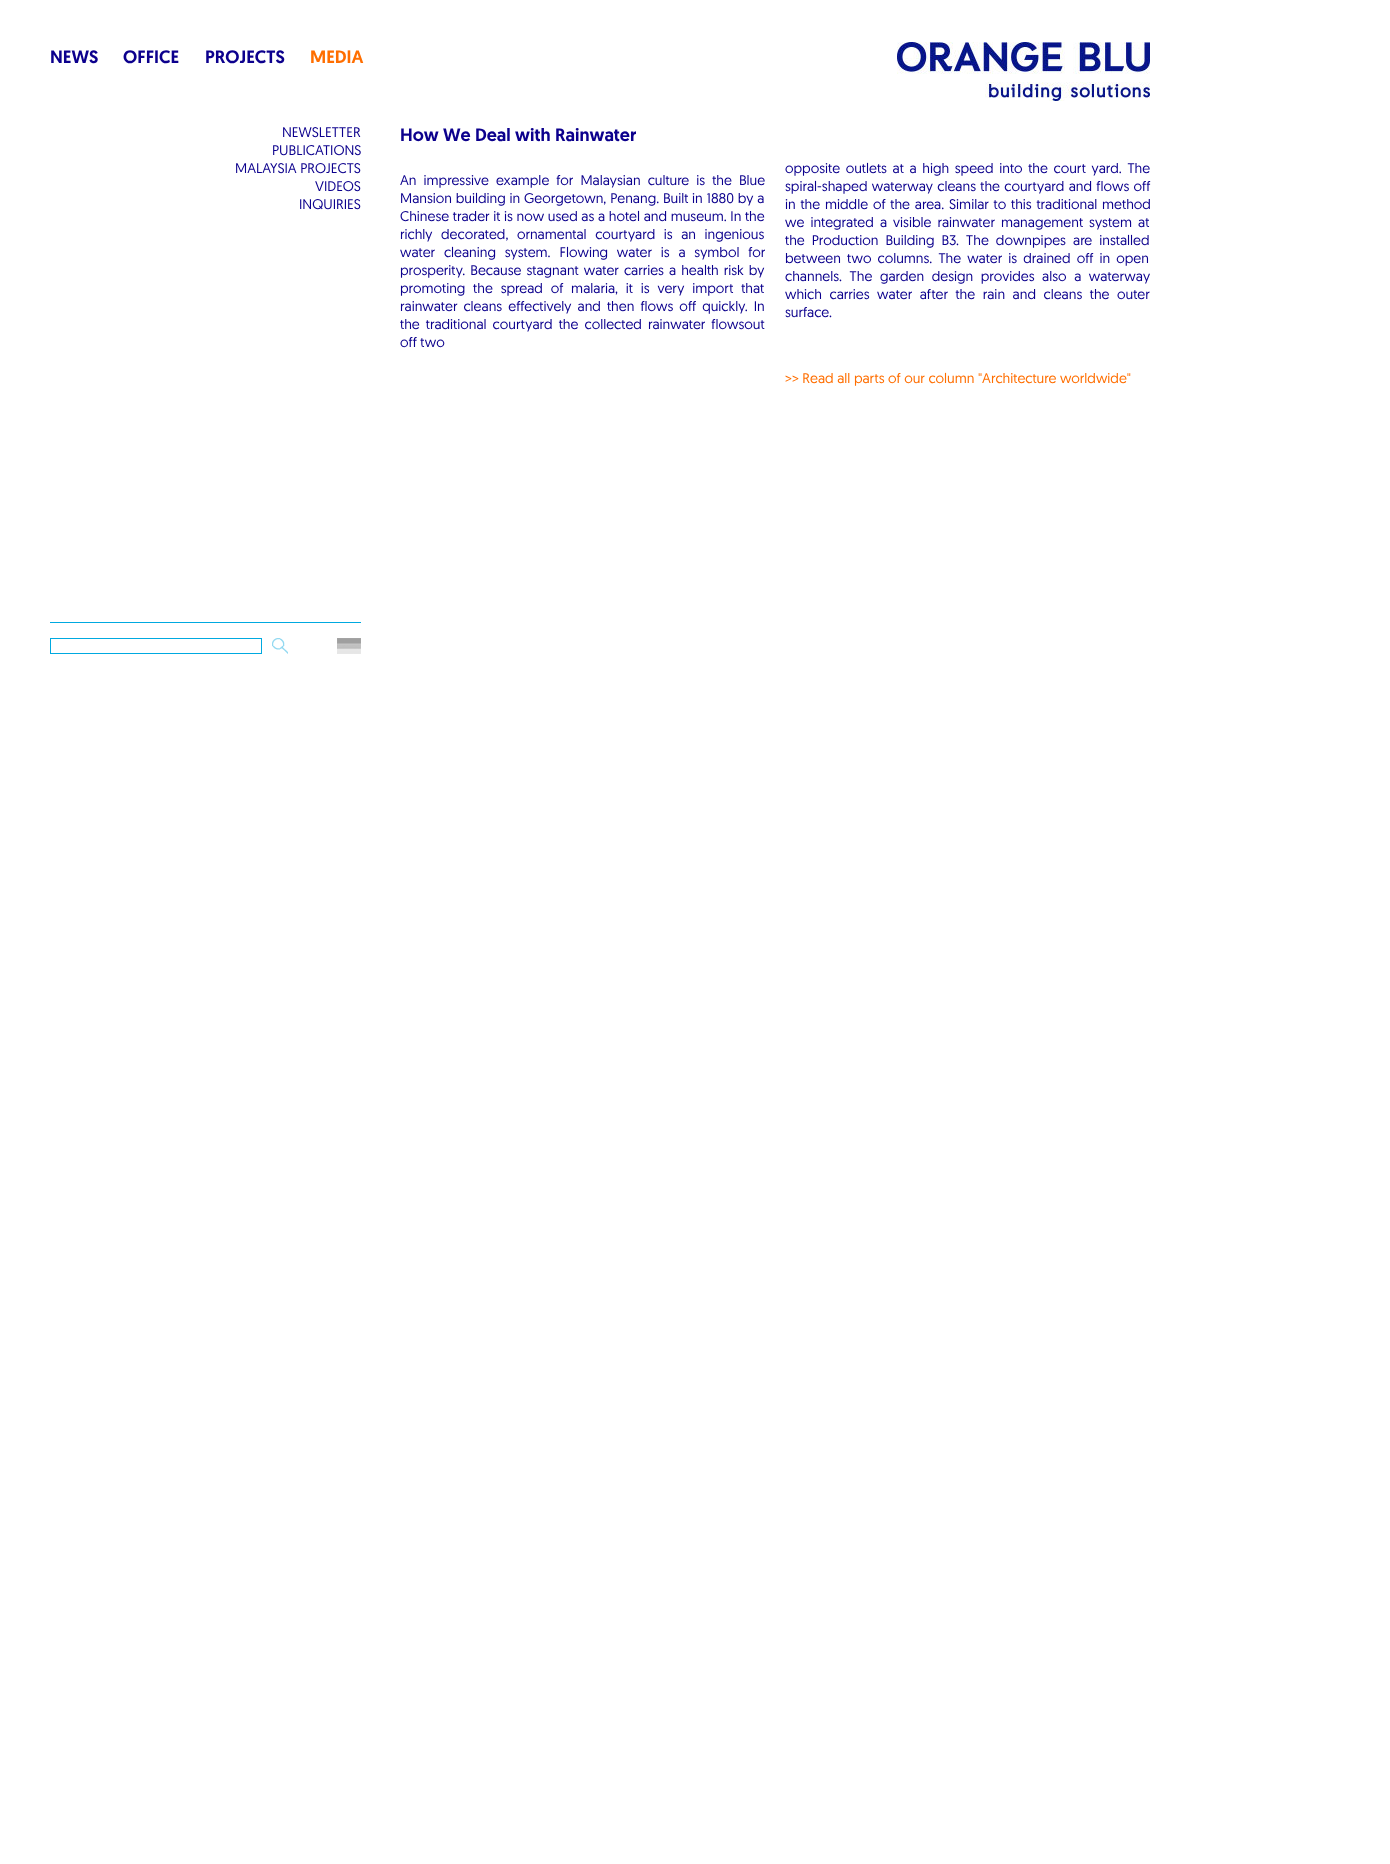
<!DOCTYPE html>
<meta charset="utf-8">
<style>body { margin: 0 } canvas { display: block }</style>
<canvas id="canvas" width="1390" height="1864"></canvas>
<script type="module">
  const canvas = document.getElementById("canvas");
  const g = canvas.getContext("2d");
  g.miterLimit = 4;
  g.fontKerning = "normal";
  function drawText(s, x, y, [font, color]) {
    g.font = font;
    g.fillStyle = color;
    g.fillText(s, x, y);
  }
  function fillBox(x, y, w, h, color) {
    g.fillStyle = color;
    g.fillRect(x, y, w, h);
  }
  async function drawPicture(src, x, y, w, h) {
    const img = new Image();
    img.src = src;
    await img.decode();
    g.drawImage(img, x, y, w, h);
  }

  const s1 = ["500 18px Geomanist", "#0C008D"];
  const s2 = ["500 18px Geomanist", "#FF6E00"];
  const s3 = ["14px Geomanist", "#0C008D"];
  const s4 = ["14px Geomanist", "#FF6E00"];

  fillBox(0, 0, 1390, 1864, "#FFFFFF");
  drawText("NEWS", 50, 63, s1);
  drawText("OFFICE", 123, 63, s1);
  drawText("PROJECTS", 205, 63, s1);
  drawText("MEDIA", 310, 63, s2);
  await drawPicture("pic1.png", 897, 42, 253, 59);
  drawText("NEWSLETTER", 282, 137, s3);
  drawText("PUBLICATIONS", 272, 155, s3);
  drawText("MALAYSIA PROJECTS", 235, 173, s3);
  drawText("VIDEOS", 315, 191, s3);
  drawText("INQUIRIES", 299, 209, s3);
  fillBox(50, 622, 311, 1, "#00A9E0");
  g.strokeStyle = "#00A9E0";
  g.strokeRect(50.5, 638.5, 211, 15);
  await drawPicture("pic2.png", 272, 638, 16, 16);
  await drawPicture("pic3.png", 337, 638, 24, 16);
  drawText("How We Deal with Rainwater", 400, 141, s1);
  g.wordSpacing = "3.5px";
  drawText("An impressive example for Malaysian culture is the Blue", 400, 185, s3);
  g.wordSpacing = "0.25px";
  drawText("Mansion building in Georgetown, Penang. Built in 1880 by a", 400, 203, s3);
  g.wordSpacing = "0.1px";
  drawText("Chinese trader it is now used as a hotel and museum. In the", 400, 221, s3);
  g.wordSpacing = "5px";
  drawText("richly decorated, ornamental courtyard is an ingenious", 400, 239, s3);
  g.wordSpacing = "5.25px";
  drawText("water cleaning system. Flowing water is a symbol for", 400, 257, s3);
  g.wordSpacing = "1.5px";
  drawText("prosperity. Because stagnant water carries a health risk by", 400, 275, s3);
  g.wordSpacing = "4.25px";
  drawText("promoting the spread of malaria, it is very import that", 400, 293, s3);
  g.wordSpacing = "2.5px";
  drawText("rainwater cleans effectively and then flows off quickly. In", 400, 311, s3);
  drawText("the traditional courtyard the collected rainwater flowsout", 400, 329, s3);
  g.wordSpacing = "0px";
  drawText("off two", 400, 347, s3);
  g.wordSpacing = "2.1px";
  drawText("opposite outlets at a high speed into the court yard. The", 785, 173, s3);
  g.wordSpacing = "0.75px";
  drawText("spiral-shaped waterway cleans the courtyard and flows off", 785, 191, s3);
  g.wordSpacing = "1.25px";
  drawText("in the middle of the area. Similar to this traditional method", 785, 209, s3);
  g.wordSpacing = "2.5px";
  drawText("we integrated a visible rainwater management system at", 785, 227, s3);
  g.wordSpacing = "3.5px";
  drawText("the Production Building B3. The downpipes are installed", 785, 245, s3);
  g.wordSpacing = "2.5px";
  drawText("between two columns. The water is drained off in open", 785, 263, s3);
  g.wordSpacing = "4px";
  drawText("channels. The garden design provides also a waterway", 785, 281, s3);
  drawText("which carries water after the rain and cleans the outer", 785, 299, s3);
  g.wordSpacing = "0px";
  drawText("surface.", 785, 317, s3);
  drawText(">> Read all parts of our column \"Architecture worldwide\"", 785, 383, s4);
</script>
